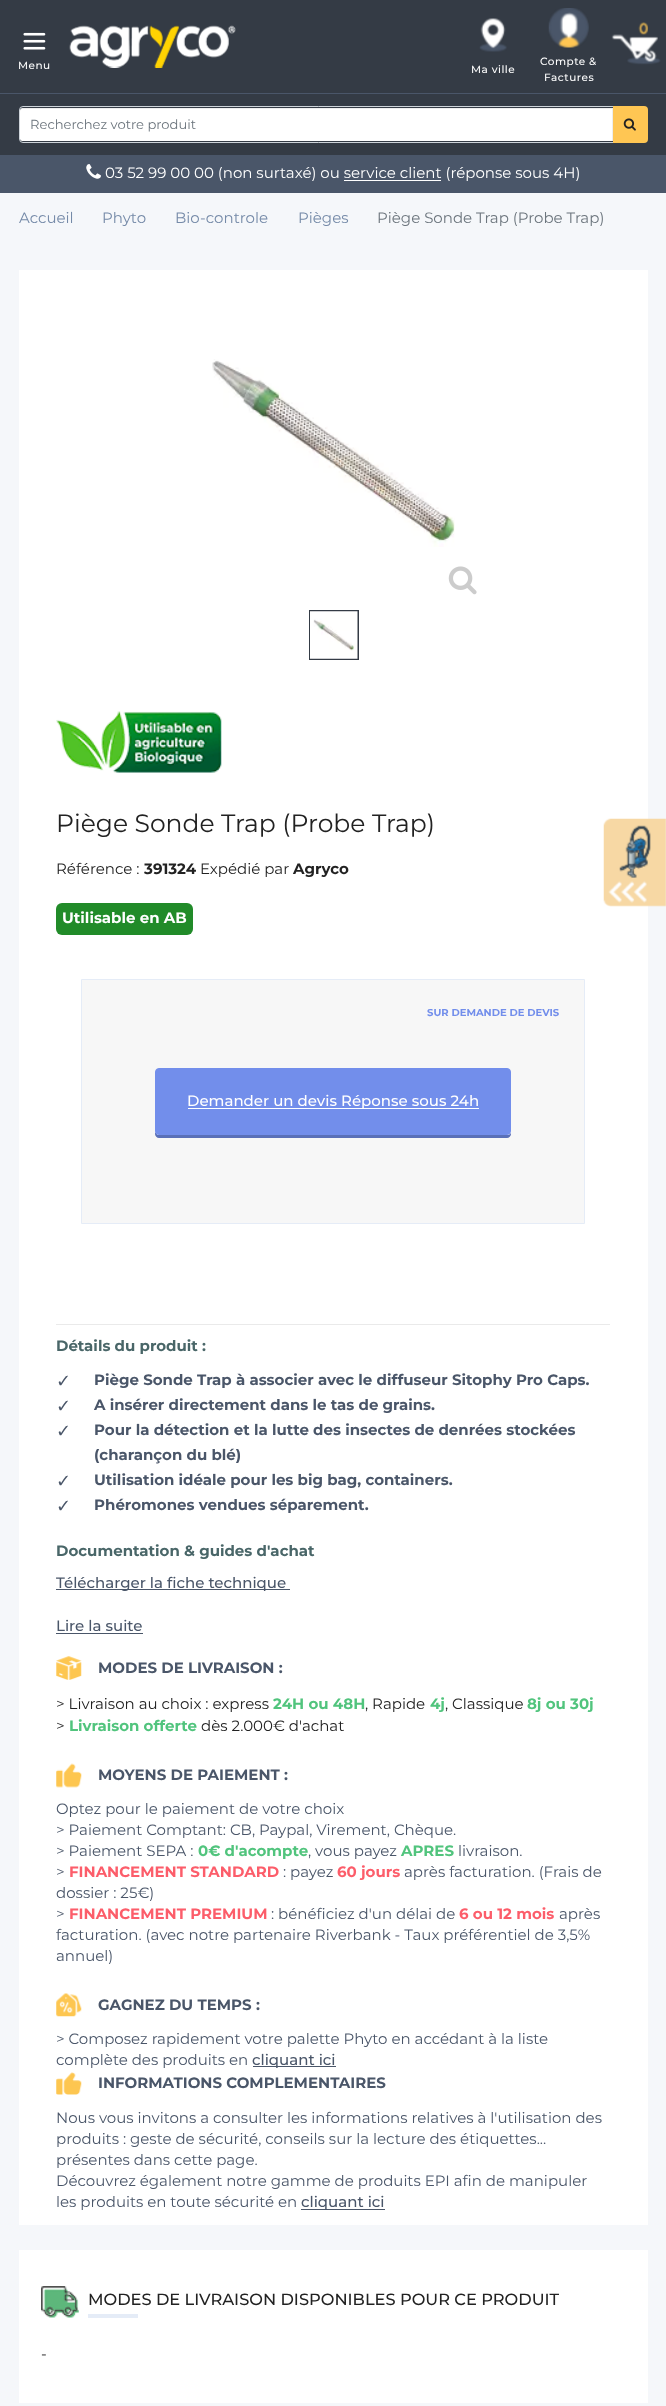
<!DOCTYPE html>
<meta charset="utf-8">
<style>body { margin: 0 } canvas { display: block }</style>
<canvas id="canvas" width="666" height="2406"></canvas>
<script type="module">
  const canvas = document.getElementById("canvas");
  const g = canvas.getContext("2d");
  g.miterLimit = 4;
  g.fontKerning = "normal";
  function drawText(s, x, y, [font, color]) {
    g.font = font;
    g.fillStyle = color;
    g.fillText(s, x, y);
  }
  function fillBox(x, y, w, h, color) {
    g.fillStyle = color;
    g.fillRect(x, y, w, h);
  }
  function fillRounded(x, y, w, h, r, color) {
    g.fillStyle = color;
    g.beginPath();
    g.roundRect(x, y, w, h, r);
    g.fill();
  }
  async function drawPicture(src, x, y, w, h) {
    const img = new Image();
    img.src = src;
    await img.decode();
    g.drawImage(img, x, y, w, h);
  }

  const s1 = ["500 10.5px Montserrat", "#FFFFFF"];
  const s2 = ["13.1px Montserrat", "#6C757D"];
  const s3 = ["15px Montserrat", "#FFFFFF"];
  const s4 = ["15px Montserrat", "#758AA8"];
  const s5 = ["15px Montserrat", "#6C757D"];
  const s6 = ["25px Montserrat", "#222222"];
  const s7 = ["15px Montserrat", "#222222"];
  const s8 = ["bold 15px Montserrat", "#222222"];
  const s9 = ["bold 15px Montserrat", "#FFFFFF"];
  const s10 = ["bold 10px Montserrat", "#728EEB"];
  const s11 = ["500 15px Montserrat", "#FFFFFF"];
  const s12 = ["bold 15px Montserrat", "#496668"];
  const s13 = ["18px DejaVu Sans", "#4A5669"];
  const s14 = ["bold 15px Montserrat", "#4A5669"];
  const s15 = ["500 15px Montserrat", "#4A5669"];
  const s16 = ["bold 15px Montserrat", "#51C47D"];
  const s17 = ["15px Montserrat", "#4A5669"];
  const s18 = ["bold 15px Montserrat", "#FC5D6A"];
  const s19 = ["500 16.25px Montserrat", "#222222"];

  fillBox(0, 0, 666, 2406, "#4A5669");
  fillBox(0, 0, 666, 93, "#343B45");
  await drawPicture("pic1.png", 23, 32, 23, 18);
  g.letterSpacing = "0.5px";
  drawText("Menu", 18, 69, s1);
  await drawPicture("pic2.png", 69, 25, 167, 43);
  await drawPicture("pic3.png", 611, 22, 50, 43);
  await drawPicture("pic4.png", 479, 18, 28, 34);
  drawText("Ma ville", 471, 73, s1);
  await drawPicture("pic5.png", 548, 8, 41, 40);
  drawText("Compte &", 540, 65, s1);
  drawText("Factures", 544, 81, s1);
  fillBox(0, 94, 666, 61, "#343B45");
  g.fillStyle = "#FFFFFF";
  g.beginPath();
  g.roundRect(20, 108, 593, 33, [2.5, 0, 0, 2.5]);
  g.fill();
  g.fillStyle = "rgba(0, 0, 0, 0.07)";
  g.beginPath();
  g.moveTo(23, 109);
  g.lineTo(612, 109);
  g.lineTo(612, 141);
  g.lineTo(613, 141);
  g.lineTo(613, 108);
  g.lineTo(22, 108);
  g.bezierCurveTo(20, 108, 20, 110, 20, 112);
  g.bezierCurveTo(20, 110, 21, 109, 23, 109);
  g.closePath();
  g.fill();
  g.beginPath();
  g.roundRect(19.5, 106.5, 594, 36, [3.5, 0, 0, 3.5]);
  g.strokeStyle = "#CED4DA";
  g.stroke();
  g.letterSpacing = "0px";
  drawText("Recherchez votre produit", 30, 129, s2);
  g.fillStyle = "#FFC653";
  g.beginPath();
  g.roundRect(613, 106, 35, 37, [0, 4, 4, 0]);
  g.fill();
  await drawPicture("pic6.png", 623, 118, 13, 13);
  await drawPicture("pic7.png", 86, 164, 15, 15);
  drawText("03 52 99 00 00 (non surtaxé) ou service client (réponse sous 4H)", 105, 178, s3);
  fillBox(344, 180, 97, 1, "#FFFFFF");
  fillBox(0, 193, 666, 2213, "#F5F7FA");
  drawText("Accueil", 19, 223, s4);
  drawText("Phyto", 102, 223, s4);
  drawText("Bio-controle", 175, 223, s4);
  drawText("Pièges", 298, 223, s4);
  drawText("Piège Sonde Trap (Probe Trap)", 377, 223, s5);
  fillBox(19, 270, 629, 1955, "#FFFFFF");
  await drawPicture("pic8.png", 212, 359, 243, 188);
  await drawPicture("pic9.png", 448, 566, 29, 29);
  fillBox(309, 610, 50, 50, "#343B45");
  await drawPicture("pic10.png", 310, 611, 48, 48);
  await drawPicture("pic11.png", 56, 711, 166, 62);
  drawText("Piège Sonde Trap (Probe Trap)", 56, 832, s6);
  drawText("Référence :", 56, 874, s7);
  drawText("391324", 144, 874, s8);
  drawText("Expédié par", 200, 874, s7);
  drawText("Agryco", 293, 874, s8);
  fillRounded(56, 903, 137, 32, 6, "#218B29");
  drawText("Utilisable en AB", 62, 923, s9);
  g.fillStyle = "#F7F7F7";
  g.beginPath();
  g.rect(81.5, 979.5, 503, 244);
  g.fill();
  g.strokeStyle = "#E5ECF7";
  g.stroke();
  drawText("SUR DEMANDE DE DEVIS", 427, 1016, s10);
  g.fillStyle = "#5A70B8";
  g.beginPath();
  g.moveTo(155, 1131);
  g.lineTo(155, 1134);
  g.bezierCurveTo(155, 1136, 157, 1138, 159, 1138);
  g.lineTo(507, 1138);
  g.bezierCurveTo(509, 1138, 511, 1136, 511, 1134);
  g.lineTo(511, 1133);
  g.bezierCurveTo(510, 1134, 509, 1135, 508, 1135);
  g.lineTo(159, 1135);
  g.bezierCurveTo(157, 1135, 155, 1133, 155, 1131);
  g.closePath();
  g.fill();
  g.fillStyle = "#728EEB";
  g.beginPath();
  g.roundRect(155.5, 1068.5, 355, 66, 3.5);
  g.fill();
  g.strokeStyle = "#728EEB";
  g.stroke();
  fillBox(188, 1108, 291, 1, "#FFFFFF");
  drawText("Demander un devis Réponse sous 24h", 187, 1106, s11);
  fillBox(56, 1324, 554, 1, "#EAEAEA");
  drawText("Détails du produit :", 56, 1351, s12);
  drawText("✓", 56, 1387, s13);
  drawText("Piège Sonde Trap à associer avec le diffuseur Sitophy Pro Caps.", 94, 1385, s14);
  drawText("✓", 56, 1412, s13);
  drawText("A insérer directement dans le tas de grains.", 94, 1410, s14);
  drawText("✓", 56, 1437, s13);
  drawText("Pour la détection et la lutte des insectes de denrées stockées", 94, 1435, s14);
  drawText("(charançon du blé)", 94, 1460, s14);
  drawText("✓", 56, 1487, s13);
  drawText("Utilisation idéale pour les big bag, containers.", 94, 1485, s14);
  drawText("✓", 56, 1512, s13);
  drawText("Phéromones vendues séparement.", 94, 1510, s14);
  drawText("Documentation & guides d'achat", 56, 1556, s12);
  fillBox(56, 1589, 234, 1, "#4A5669");
  drawText("Télécharger la fiche technique", 56, 1588, s15);
  drawText("Lire la suite", 56, 1631, s15);
  fillBox(56, 1633, 87, 1, "#4A5669");
  await drawPicture("pic12.png", 56, 1656, 26, 24);
  drawText("MODES DE LIVRAISON :", 98, 1673, s14);
  drawText("> Livraison au choix : express", 56, 1709, s7);
  drawText("24H ou 48H", 273, 1709, s16);
  drawText(", Rapide", 365, 1709, s7);
  drawText("4j", 430, 1709, s16);
  drawText(", Classique", 445, 1709, s7);
  drawText("8j ou 30j", 527, 1709, s16);
  drawText(">", 56, 1731, s7);
  drawText("Livraison offerte", 69, 1731, s16);
  drawText("dès 2.000€ d'achat", 201, 1731, s7);
  await drawPicture("pic13.png", 56, 1763, 26, 25);
  drawText("MOYENS DE PAIEMENT :", 98, 1780, s14);
  drawText("Optez pour le paiement de votre choix", 56, 1814, s17);
  drawText("> Paiement Comptant: CB, Paypal, Virement, Chèque.", 56, 1835, s17);
  drawText("> Paiement SEPA :", 56, 1856, s17);
  drawText("0€ d'acompte", 198, 1856, s16);
  drawText(", vous payez", 308, 1856, s17);
  drawText("APRES", 401, 1856, s16);
  drawText("livraison.", 458, 1856, s17);
  drawText(">", 56, 1877, s17);
  drawText("FINANCEMENT STANDARD", 69, 1877, s18);
  drawText(": payez", 283, 1877, s17);
  drawText("60 jours", 337, 1877, s18);
  drawText("après facturation. (Frais de", 404, 1877, s17);
  drawText("dossier : 25€)", 56, 1898, s17);
  drawText(">", 56, 1919, s17);
  drawText("FINANCEMENT PREMIUM", 69, 1919, s18);
  drawText(": bénéficiez d'un délai de", 271, 1919, s17);
  drawText("6 ou 12 mois", 459, 1919, s18);
  drawText("après", 559, 1919, s17);
  drawText("facturation. (avec notre partenaire Riverbank - Taux préférentiel de 3,5%", 56, 1940, s17);
  drawText("annuel)", 56, 1961, s17);
  await drawPicture("pic14.png", 56, 1993, 26, 24);
  drawText("GAGNEZ DU TEMPS :", 98, 2010, s14);
  drawText("> Composez rapidement votre palette Phyto en accédant à la liste", 56, 2044, s17);
  drawText("complète des produits en", 56, 2065, s17);
  fillBox(253, 2066, 83, 1, "#4A5669");
  drawText("cliquant ici", 252, 2065, s15);
  await drawPicture("pic15.png", 56, 2072, 26, 23);
  drawText("INFORMATIONS COMPLEMENTAIRES", 98, 2088, s14);
  drawText("Nous vous invitons a consulter les informations relatives à l'utilisation des", 56, 2123, s17);
  drawText("produits : geste de sécurité, conseils sur la lecture des étiquettes...", 56, 2144, s17);
  drawText("présentes dans cette page.", 56, 2165, s17);
  drawText("Découvrez également notre gamme de produits EPI afin de manipuler", 56, 2186, s17);
  drawText("les produits en toute sécurité en", 56, 2207, s17);
  fillBox(301, 2209, 84, 1, "#4A5669");
  drawText("cliquant ici", 301, 2207, s15);
  fillBox(19, 2250, 629, 153, "#FFFFFF");
  await drawPicture("pic16.png", 41, 2286, 38, 32);
  drawText("MODES DE LIVRAISON DISPONIBLES POUR CE PRODUIT", 88, 2305, s19);
  fillBox(88, 2314, 50, 4, "#E5ECF7");
  drawText("-", 41, 2359, s7);
  await drawPicture("pic17.png", 603, 818, 63, 89);
</script>
